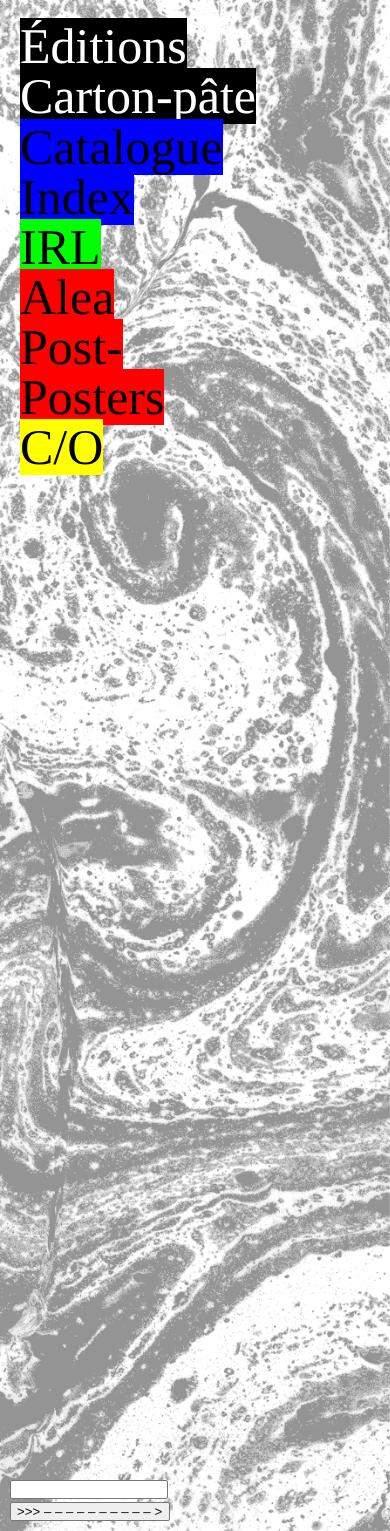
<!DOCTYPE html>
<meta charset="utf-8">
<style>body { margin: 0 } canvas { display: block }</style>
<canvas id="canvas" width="390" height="1531"></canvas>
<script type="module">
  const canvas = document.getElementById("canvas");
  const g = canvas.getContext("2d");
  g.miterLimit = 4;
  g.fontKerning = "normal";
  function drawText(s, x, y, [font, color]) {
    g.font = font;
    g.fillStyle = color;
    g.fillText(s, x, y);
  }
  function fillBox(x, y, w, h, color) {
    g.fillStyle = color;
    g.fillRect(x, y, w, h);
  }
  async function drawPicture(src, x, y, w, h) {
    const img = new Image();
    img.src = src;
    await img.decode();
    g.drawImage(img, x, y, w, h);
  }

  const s1 = ["50px Liberation Serif", "#FFFFFF"];
  const s2 = ["50px Liberation Serif", "#000000"];
  const s3 = ["13.25px Liberation Sans", "#000000"];

  fillBox(0, 0, 390, 1531, "#FFFFFF");
  await drawPicture("pic1.png", 0, 0, 390, 1531);
  fillBox(20, 18, 167, 50, "#000000");
  drawText("Éditions", 20, 63, s1);
  fillBox(20, 68, 236, 56, "#000000");
  drawText("Carton-pâte", 20, 113, s1);
  fillBox(20, 119, 203, 56, "#0000FF");
  drawText("Catalogue", 20, 164, s2);
  fillBox(20, 175, 114, 50, "#0000FF");
  drawText("Index", 20, 214, s2);
  fillBox(20, 219, 81, 50, "#00FF00");
  drawText("IRL", 20, 264, s2);
  fillBox(20, 269, 94, 50, "#FF0000");
  drawText("Alea", 20, 314, s2);
  fillBox(20, 319, 103, 50, "#FF0000");
  drawText("Post-", 20, 364, s2);
  fillBox(20, 369, 144, 56, "#FF0000");
  drawText("Posters", 20, 414, s2);
  fillBox(20, 419, 83, 56, "#FFFF00");
  drawText("C/O", 20, 464, s2);
  g.fillStyle = "#FFFFFF";
  g.beginPath();
  g.roundRect(10.5, 1480.5, 157, 18, 1.5);
  g.fill();
  g.strokeStyle = "#767676";
  g.stroke();
  g.fillStyle = "#EFEFEF";
  g.beginPath();
  g.roundRect(10.5, 1502.5, 159, 18, 1.5);
  g.fill();
  g.stroke();
  drawText(">>> – – – – – – – – – – >", 17, 1516, s3);
</script>
